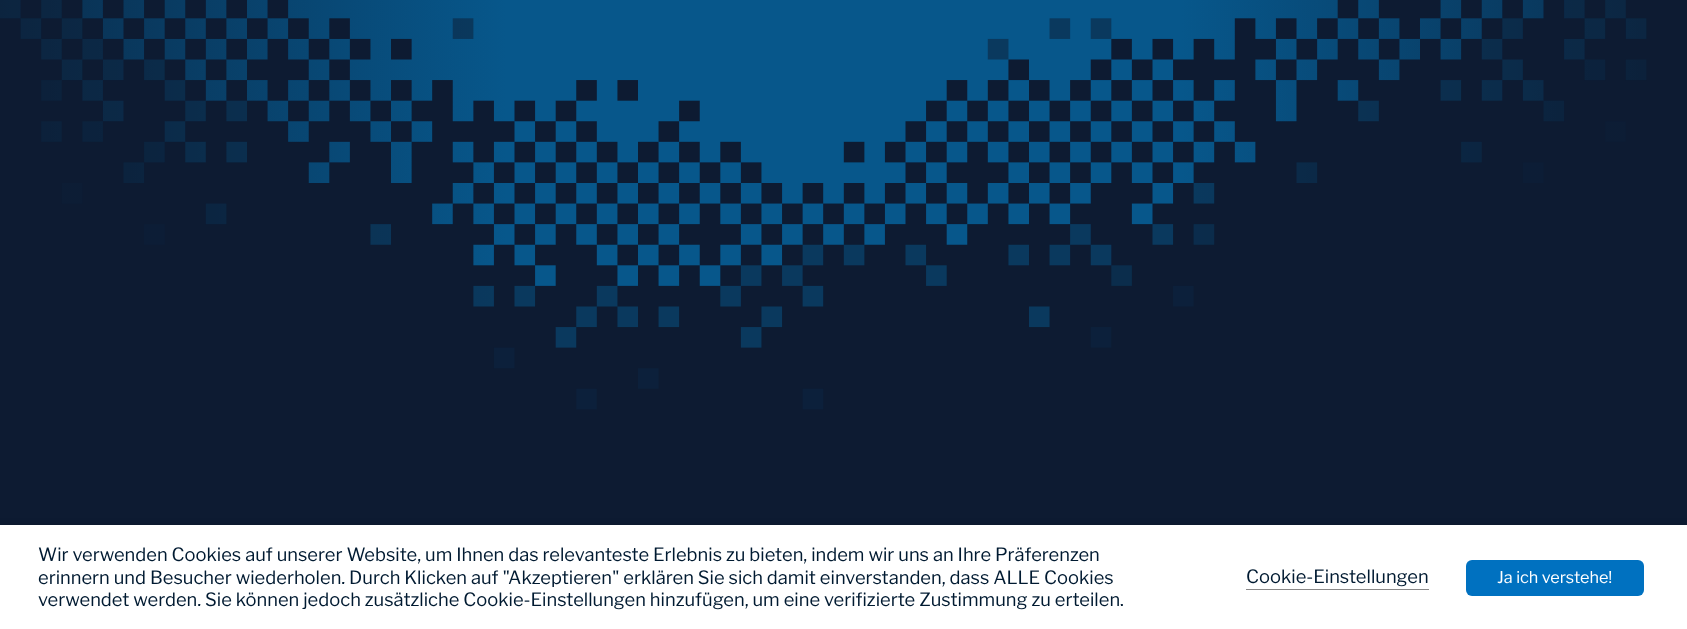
<!DOCTYPE html>
<meta charset="utf-8">
<style>body { margin: 0 } canvas { display: block }</style>
<canvas id="canvas" width="1687" height="629"></canvas>
<script type="module">
  const canvas = document.getElementById("canvas");
  const g = canvas.getContext("2d");
  g.miterLimit = 4;
  g.fontKerning = "normal";
  function drawText(s, x, y, [font, color]) {
    g.font = font;
    g.fillStyle = color;
    g.fillText(s, x, y);
  }
  function fillBox(x, y, w, h, color) {
    g.fillStyle = color;
    g.fillRect(x, y, w, h);
  }
  function fillRounded(x, y, w, h, r, color) {
    g.fillStyle = color;
    g.beginPath();
    g.roundRect(x, y, w, h, r);
    g.fill();
  }
  async function drawPicture(src, x, y, w, h) {
    const img = new Image();
    img.src = src;
    await img.decode();
    g.drawImage(img, x, y, w, h);
  }

  const s1 = ["18.33px Libre Franklin", "#001A31"];
  const s2 = ["16.25px Libre Franklin", "#FFFFFF"];

  fillBox(0, 0, 1687, 629, "#FFFFFF");
  await drawPicture("pic1.png", 0, 0, 1687, 525);
  g.fillStyle = "rgba(0, 0, 0, 0.5)";
  g.filter = "blur(6px)";
  g.beginPath();
  g.rect(0, 531, 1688, 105);
  g.fill();
  g.filter = "none";
  fillBox(0, 525, 1687, 104, "#FFFFFF");
  drawText("Wir verwenden Cookies auf unserer Website, um Ihnen das relevanteste Erlebnis zu bieten, indem wir uns an Ihre Präferenzen", 38, 561, s1);
  drawText("erinnern und Besucher wiederholen. Durch Klicken auf \"Akzeptieren\" erklären Sie sich damit einverstanden, dass ALLE Cookies", 38, 584, s1);
  drawText("verwendet werden. Sie können jedoch zusätzliche Cookie-Einstellungen hinzufügen, um eine verifizierte Zustimmung zu erteilen.", 38, 606, s1);
  drawText("Cookie-Einstellungen", 1246, 583, s1);
  fillBox(1246, 589, 183, 1, "#898888");
  fillRounded(1466, 560, 178, 36, 6, "#0071C0");
  drawText("Ja ich verstehe!", 1497, 583, s2);
</script>
